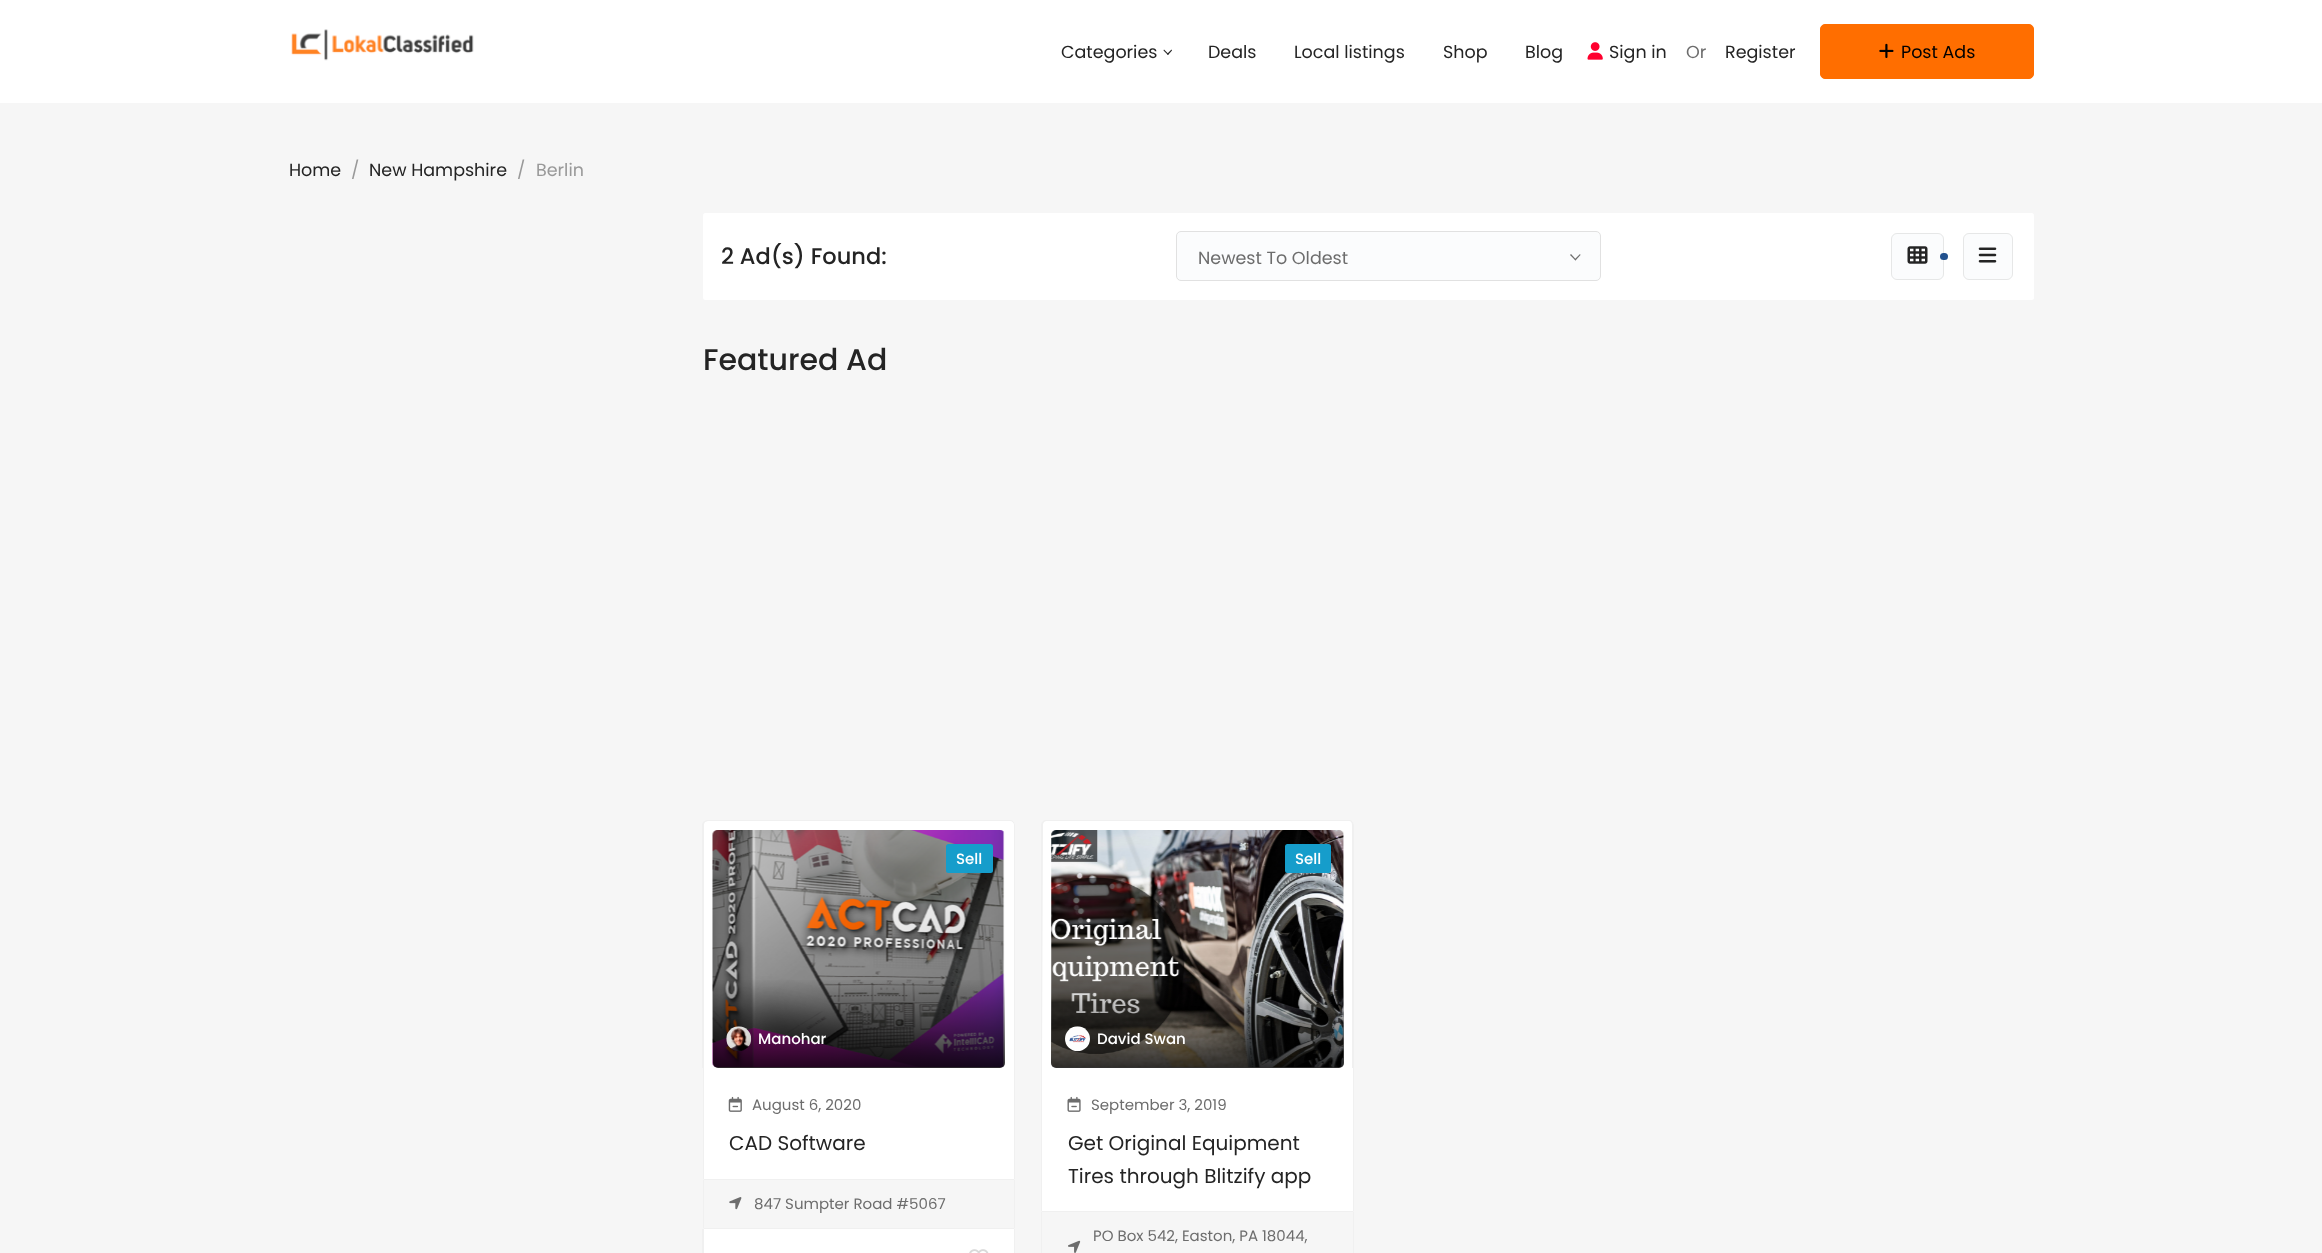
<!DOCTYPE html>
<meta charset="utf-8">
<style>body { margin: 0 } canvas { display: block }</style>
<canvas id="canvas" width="2322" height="1253"></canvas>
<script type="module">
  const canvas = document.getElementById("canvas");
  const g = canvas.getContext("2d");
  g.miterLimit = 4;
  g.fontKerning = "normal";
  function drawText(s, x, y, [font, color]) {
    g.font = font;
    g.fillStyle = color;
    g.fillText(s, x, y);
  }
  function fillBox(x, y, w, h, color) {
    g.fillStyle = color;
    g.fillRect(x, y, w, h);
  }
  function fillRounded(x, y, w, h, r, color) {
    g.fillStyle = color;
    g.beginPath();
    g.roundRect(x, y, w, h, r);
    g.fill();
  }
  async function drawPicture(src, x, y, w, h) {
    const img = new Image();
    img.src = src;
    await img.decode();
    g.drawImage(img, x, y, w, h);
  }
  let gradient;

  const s1 = ["17.5px Poppins", "#242424"];
  const s2 = ["17.5px Poppins", "#6D6D6D"];
  const s3 = ["17.5px Poppins", "#000000"];
  const s4 = ["17.5px Poppins", "#999999"];
  const s5 = ["500 22.5px Poppins", "#242424"];
  const s6 = ["500 30px Poppins", "#242424"];
  const s7 = ["500 15px Poppins", "#FFFFFF"];
  const s8 = ["15px Poppins", "#6D6D6D"];
  const s9 = ["20px Poppins", "#242424"];

  fillBox(0, 0, 2322, 1253, "#F6F6F6");
  fillBox(0, 0, 2322, 103, "#FFFFFF");
  await drawPicture("pic1.png", 291, 29, 183, 32);
  drawText("Categories", 1061, 58, s1);
  g.beginPath();
  g.moveTo(1172, 50.5);
  g.lineTo(1168, 55);
  g.lineTo(1167, 54);
  g.lineTo(1171.5, 49.5);
  g.closePath();
  g.fill();
  g.beginPath();
  g.moveTo(1168.5, 54);
  g.lineTo(1168, 55);
  g.lineTo(1163.5, 50.5);
  g.lineTo(1164, 49.5);
  g.closePath();
  g.fill();
  drawText("Deals", 1208, 58, s1);
  drawText("Local listings", 1294, 58, s1);
  drawText("Shop", 1443, 58, s1);
  drawText("Blog", 1525, 58, s1);
  await drawPicture("pic2.png", 1587, 42, 16, 18);
  drawText("Sign in", 1609, 58, s1);
  drawText("Or", 1686, 58, s2);
  drawText("Register", 1725, 58, s1);
  g.fillStyle = "#FF6E00";
  g.beginPath();
  g.roundRect(1820.5, 24.5, 213, 54, 4.5);
  g.fill();
  g.strokeStyle = "#FF6E00";
  g.stroke();
  await drawPicture("pic3.png", 1879, 43, 15, 15);
  drawText("Post Ads", 1901, 58, s3);
  drawText("Home", 289, 176, s1);
  drawText("/", 351, 176, s4);
  drawText("New Hampshire", 369, 176, s1);
  drawText("/", 517, 176, s4);
  drawText("Berlin", 536, 176, s4);
  fillRounded(703, 213, 1331, 87, 2.5, "#FFFFFF");
  drawText("2 Ad(s) Found:", 721, 264, s5);
  g.fillStyle = "#FBFCFD";
  g.beginPath();
  g.roundRect(1176.5, 231.5, 424, 49, 4.5);
  g.fill();
  g.strokeStyle = "#E1E1E1";
  g.stroke();
  drawText("Newest To Oldest", 1198, 264, s2);
  g.beginPath();
  g.moveTo(1580.5, 255);
  g.lineTo(1575.5, 260.5);
  g.lineTo(1574.5, 259.5);
  g.lineTo(1580, 254);
  g.closePath();
  g.fill();
  g.beginPath();
  g.moveTo(1576, 259.5);
  g.lineTo(1575.5, 260.5);
  g.lineTo(1570, 255);
  g.lineTo(1571, 254);
  g.closePath();
  g.fill();
  g.fillStyle = "#FBFCFD";
  g.beginPath();
  g.roundRect(1891.5, 233.5, 52, 46, 5.5);
  g.fill();
  g.strokeStyle = "#E6E7E7";
  g.stroke();
  await drawPicture("pic4.png", 1907, 246, 21, 18);
  g.beginPath();
  g.roundRect(1963.5, 233.5, 49, 46, 5.5);
  g.fill();
  g.stroke();
  await drawPicture("pic5.png", 1978, 247, 19, 16);
  fillRounded(1940, 253, 8, 7, 3.5, "#22518E");
  drawText("Featured Ad", 703, 370, s6);
  fillRounded(703, 820, 312, 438, 5, "#FFFFFF");
  g.fillStyle = "#F0F0F0";
  g.beginPath();
  g.moveTo(708, 820);
  g.lineTo(1010, 820);
  g.bezierCurveTo(1013, 820, 1015, 822, 1015, 825);
  g.lineTo(1015, 1068);
  g.lineTo(702, 1068);
  g.lineTo(702, 825);
  g.bezierCurveTo(702, 822, 705, 820, 708, 820);
  g.closePath();
  g.moveTo(708, 821);
  g.lineTo(1010, 821);
  g.bezierCurveTo(1012, 821, 1014, 823, 1014, 825);
  g.lineTo(1014, 1068);
  g.lineTo(704, 1068);
  g.lineTo(704, 824);
  g.lineTo(705, 822);
  g.closePath();
  g.fill("evenodd");
  await drawPicture("pic6.png", 712, 830, 293, 238);
  gradient = g.createLinearGradient(859, 1068, 859, 980);
  gradient.addColorStop(0, "rgba(0, 0, 0, 0.8)");
  gradient.addColorStop(1, "rgba(0, 0, 0, 0.02)");
  g.fillStyle = gradient;
  g.beginPath();
  g.roundRect(713, 980, 292, 88, [0, 0, 5, 5]);
  g.fill();
  fillRounded(946, 844, 47, 29, 2.5, "#169DCB");
  drawText("Sell", 956, 864, s7);
  await drawPicture("pic7.png", 726, 1026, 26, 25);
  drawText("Manohar", 758, 1044, s7);
  fillBox(1014, 1068, 1, 111, "#F0F0F0");
  fillBox(703, 1068, 1, 111, "#F0F0F0");
  await drawPicture("pic8.png", 728, 1096, 14, 16);
  drawText("August 6, 2020", 752, 1110, s8);
  drawText("CAD Software", 729, 1150, s9);
  g.fillStyle = "#F6F6F6";
  g.beginPath();
  g.rect(703.5, 1179.5, 311, 49);
  g.fill();
  g.strokeStyle = "#F0F0F0";
  g.stroke();
  await drawPicture("pic9.png", 729, 1197, 13, 13);
  drawText("847 Sumpter Road #5067", 754, 1209, s8);
  g.fillStyle = "#F0F0F0";
  g.beginPath();
  g.moveTo(702, 1229);
  g.lineTo(1015, 1229);
  g.lineTo(1015, 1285);
  g.bezierCurveTo(1015, 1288, 1013, 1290, 1010, 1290);
  g.lineTo(708, 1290);
  g.bezierCurveTo(705, 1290, 702, 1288, 702, 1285);
  g.closePath();
  g.moveTo(704, 1229);
  g.lineTo(1014, 1229);
  g.lineTo(1014, 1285);
  g.bezierCurveTo(1014, 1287, 1012, 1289, 1010, 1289);
  g.lineTo(708, 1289);
  g.bezierCurveTo(705, 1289, 704, 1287, 704, 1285);
  g.closePath();
  g.fill("evenodd");
  await drawPicture("pic10.png", 969, 1249, 20, 4);
  fillRounded(1041, 820, 313, 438, 5, "#FFFFFF");
  g.fillStyle = "#F0F0F0";
  g.beginPath();
  g.moveTo(1046, 820);
  g.lineTo(1349, 820);
  g.bezierCurveTo(1352, 820, 1354, 822, 1354, 825);
  g.lineTo(1354, 1068);
  g.lineTo(1041, 1068);
  g.lineTo(1041, 825);
  g.bezierCurveTo(1041, 822, 1043, 820, 1046, 820);
  g.closePath();
  g.moveTo(1046, 821);
  g.lineTo(1349, 821);
  g.bezierCurveTo(1351, 821, 1352, 823, 1352, 825);
  g.lineTo(1352, 1068);
  g.lineTo(1042, 1068);
  g.lineTo(1043, 824);
  g.lineTo(1044, 822);
  g.closePath();
  g.fill("evenodd");
  await drawPicture("pic11.png", 1051, 830, 293, 238);
  gradient = g.createLinearGradient(1198, 1068, 1198, 980);
  gradient.addColorStop(0, "rgba(0, 0, 0, 0.8)");
  gradient.addColorStop(1, "rgba(0, 0, 0, 0.02)");
  g.fillStyle = gradient;
  g.beginPath();
  g.roundRect(1051, 980, 293, 88, [0, 0, 5, 5]);
  g.fill();
  fillRounded(1285, 844, 46, 29, 2.5, "#169DCB");
  drawText("Sell", 1295, 864, s7);
  await drawPicture("pic12.png", 1065, 1026, 25, 26);
  drawText("David Swan", 1097, 1044, s7);
  fillBox(1353, 1068, 1, 143, "#F0F0F0");
  fillBox(1041, 1068, 1, 143, "#F0F0F0");
  await drawPicture("pic13.png", 1067, 1096, 14, 16);
  drawText("September 3, 2019", 1091, 1110, s8);
  drawText("Get Original Equipment", 1068, 1150, s9);
  drawText("Tires through Blitzify app", 1068, 1183, s9);
  g.fillStyle = "#F6F6F6";
  g.beginPath();
  g.rect(1041.5, 1211.5, 312, 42);
  g.fill();
  g.stroke();
  drawText("PO Box 542, Easton, PA 18044,", 1093, 1241, s8);
  await drawPicture("pic14.png", 1068, 1240, 13, 13);
</script>
